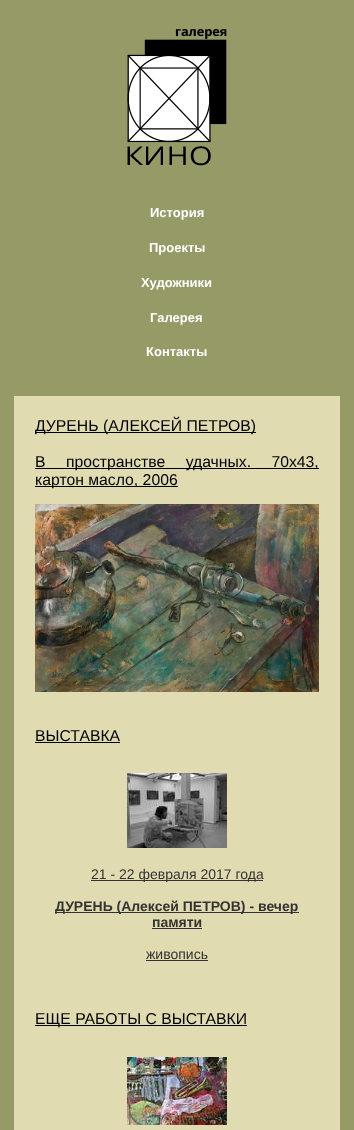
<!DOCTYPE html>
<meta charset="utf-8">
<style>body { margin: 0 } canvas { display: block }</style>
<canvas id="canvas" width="354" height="1130"></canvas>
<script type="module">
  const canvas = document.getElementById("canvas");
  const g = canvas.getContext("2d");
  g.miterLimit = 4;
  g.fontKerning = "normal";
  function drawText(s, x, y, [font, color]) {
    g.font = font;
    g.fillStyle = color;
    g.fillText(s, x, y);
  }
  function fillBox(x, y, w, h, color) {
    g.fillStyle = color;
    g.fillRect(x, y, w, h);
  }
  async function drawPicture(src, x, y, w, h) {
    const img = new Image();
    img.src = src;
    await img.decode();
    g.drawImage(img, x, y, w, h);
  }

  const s1 = ["bold 13px Liberation Sans", "#FFFFFF"];
  const s2 = ["15.75px Liberation Sans", "#000000"];
  const s3 = ["14px Liberation Sans", "#333333"];
  const s4 = ["bold 14px Liberation Sans", "#333333"];

  fillBox(0, 0, 354, 1130, "#969A66");
  await drawPicture("pic1.png", 127, 28, 100, 138);
  drawText("История", 150, 217, s1);
  drawText("Проекты", 149, 252, s1);
  drawText("Художники", 141, 287, s1);
  drawText("Галерея", 150, 322, s1);
  drawText("Контакты", 146, 356, s1);
  fillBox(14, 396, 326, 734, "#E0DBB0");
  fillBox(35, 432, 221, 1, "#000000");
  drawText("ДУРЕНЬ (АЛЕКСЕЙ ПЕТРОВ)", 35, 431, s2);
  fillBox(35, 468, 284, 1, "#000000");
  g.wordSpacing = "16px";
  drawText("В пространстве удачных. 70х43,", 35, 467, s2);
  fillBox(35, 486, 143, 1, "#000000");
  g.wordSpacing = "0px";
  drawText("картон масло, 2006", 35, 485, s2);
  await drawPicture("pic2.png", 35, 504, 284, 188);
  drawText("ВЫСТАВКА", 35, 741, s2);
  fillBox(35, 742, 85, 1, "#000000");
  await drawPicture("pic3.png", 127, 773, 100, 75);
  fillBox(91, 880, 172, 1, "#333333");
  drawText("21 - 22 февраля 2017 года", 91, 879, s3);
  fillBox(55, 912, 244, 1, "#333333");
  drawText("ДУРЕНЬ (Алексей ПЕТРОВ) - вечер", 55, 911, s4);
  drawText("памяти", 152, 927, s4);
  fillBox(152, 928, 50, 1, "#333333");
  drawText("живопись", 146, 959, s3);
  fillBox(146, 960, 62, 1, "#333333");
  fillBox(35, 1025, 212, 1, "#000000");
  drawText("ЕЩЕ РАБОТЫ С ВЫСТАВКИ", 35, 1024, s2);
  await drawPicture("pic4.png", 127, 1057, 100, 68);
</script>
